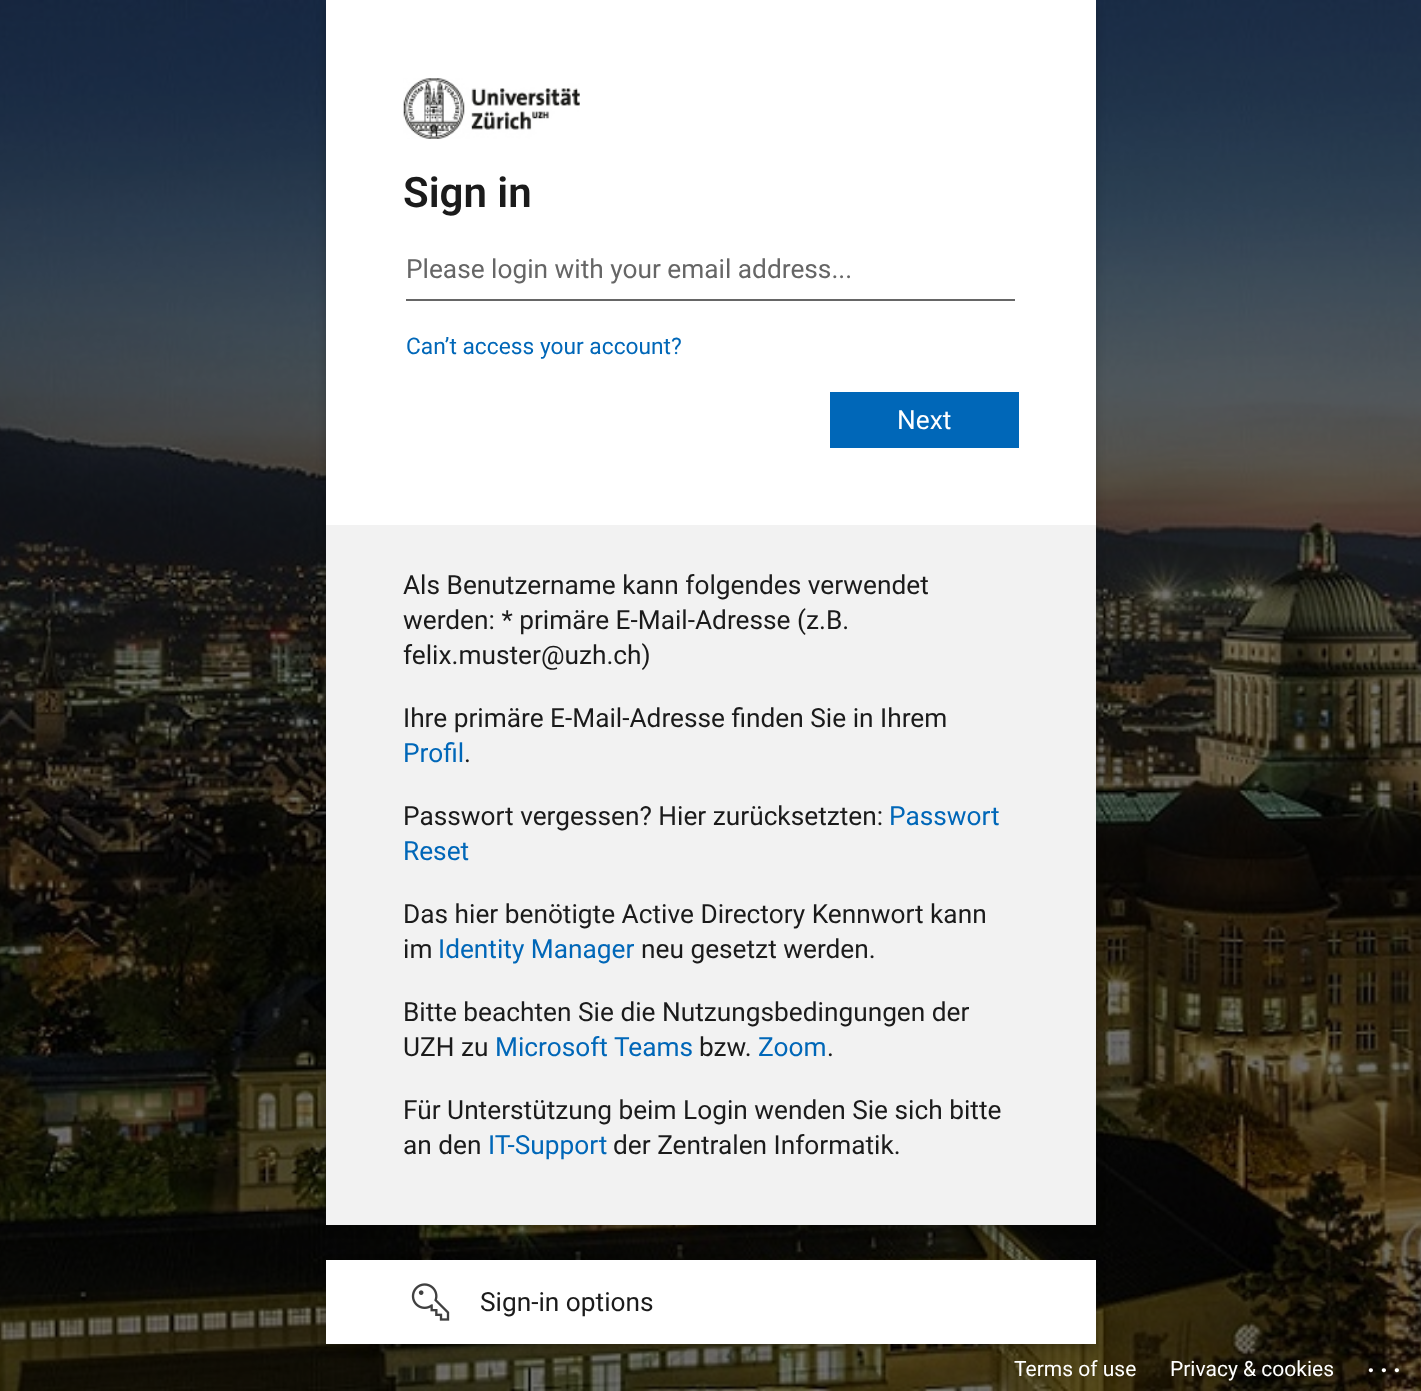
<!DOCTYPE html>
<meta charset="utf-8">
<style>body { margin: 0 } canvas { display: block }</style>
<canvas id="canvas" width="1421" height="1391"></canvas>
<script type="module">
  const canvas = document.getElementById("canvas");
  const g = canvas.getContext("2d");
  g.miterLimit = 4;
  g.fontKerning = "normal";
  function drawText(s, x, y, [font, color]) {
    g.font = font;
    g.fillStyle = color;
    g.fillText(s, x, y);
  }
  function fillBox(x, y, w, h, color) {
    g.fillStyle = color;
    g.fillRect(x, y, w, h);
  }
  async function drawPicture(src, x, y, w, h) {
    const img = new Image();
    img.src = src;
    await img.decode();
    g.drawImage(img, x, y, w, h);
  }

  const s1 = ["600 42px Roboto", "#1B1B1B"];
  const s2 = ["26.25px Roboto", "#666666"];
  const s3 = ["22.75px Roboto", "#0067B8"];
  const s4 = ["26.25px Roboto", "#FFFFFF"];
  const s5 = ["26.25px Roboto", "#1B1B1B"];
  const s6 = ["26.25px Roboto", "#0067B8"];
  const s7 = ["21px Roboto", "#FFFFFF"];
  const s8 = ["600 28px Roboto", "#FFFFFF"];

  fillBox(0, 0, 1421, 1391, "#FFFFFF");
  await drawPicture("pic1.png", 0, 0, 1421, 1391);
  g.fillStyle = "rgba(0, 0, 0, 0.2)";
  g.filter = "blur(5px)";
  g.beginPath();
  g.rect(326, 4, 770, 1225);
  g.fill();
  g.filter = "none";
  fillBox(326, 0, 770, 525, "#FFFFFF");
  await drawPicture("pic2.png", 403, 78, 177, 61);
  drawText("Sign in", 403, 207, s1);
  fillBox(406, 299, 609, 2, "#666666");
  drawText("Please login with your email address...", 406, 278, s2);
  drawText("Can’t access your account?", 406, 354, s3);
  fillBox(830, 392, 189, 56, "#0067B8");
  drawText("Next", 897, 429, s4);
  fillBox(326, 525, 770, 700, "#F2F2F2");
  drawText("Als Benutzername kann folgendes verwendet", 403, 594, s5);
  drawText("werden: * primäre E-Mail-Adresse (z.B.", 403, 629, s5);
  drawText("felix.muster@uzh.ch)", 403, 664, s5);
  drawText("Ihre primäre E-Mail-Adresse finden Sie in Ihrem", 403, 727, s5);
  drawText("Profil", 403, 762, s6);
  drawText(".", 464, 762, s5);
  drawText("Passwort vergessen? Hier zurücksetzten:", 403, 825, s5);
  drawText("Passwort", 889, 825, s6);
  drawText("Reset", 403, 860, s6);
  drawText("Das hier benötigte Active Directory Kennwort kann", 403, 923, s5);
  drawText("im", 403, 958, s5);
  drawText("Identity Manager", 438, 958, s6);
  drawText("neu gesetzt werden.", 641, 958, s5);
  drawText("Bitte beachten Sie die Nutzungsbedingungen der", 403, 1021, s5);
  drawText("UZH zu", 403, 1056, s5);
  drawText("Microsoft Teams", 495, 1056, s6);
  drawText("bzw.", 699, 1056, s5);
  drawText("Zoom", 758, 1056, s6);
  drawText(".", 827, 1056, s5);
  drawText("Für Unterstützung beim Login wenden Sie sich bitte", 403, 1119, s5);
  drawText("an den", 403, 1154, s5);
  drawText("IT-Support", 488, 1154, s6);
  drawText("der Zentralen Informatik.", 613, 1154, s5);
  g.fillStyle = "rgba(0, 0, 0, 0.2)";
  g.filter = "blur(5px)";
  g.beginPath();
  g.rect(326, 1264, 770, 84);
  g.fill();
  g.filter = "none";
  fillBox(326, 1260, 770, 84, "#FFFFFF");
  await drawPicture("pic3.png", 411, 1283, 39, 38);
  drawText("Sign-in options", 480, 1311, s5);
  drawText("Terms of use", 1014, 1376, s7);
  drawText("Privacy & cookies", 1170, 1376, s7);
  g.letterSpacing = "5px";
  drawText("...", 1367, 1372, s8);
</script>
